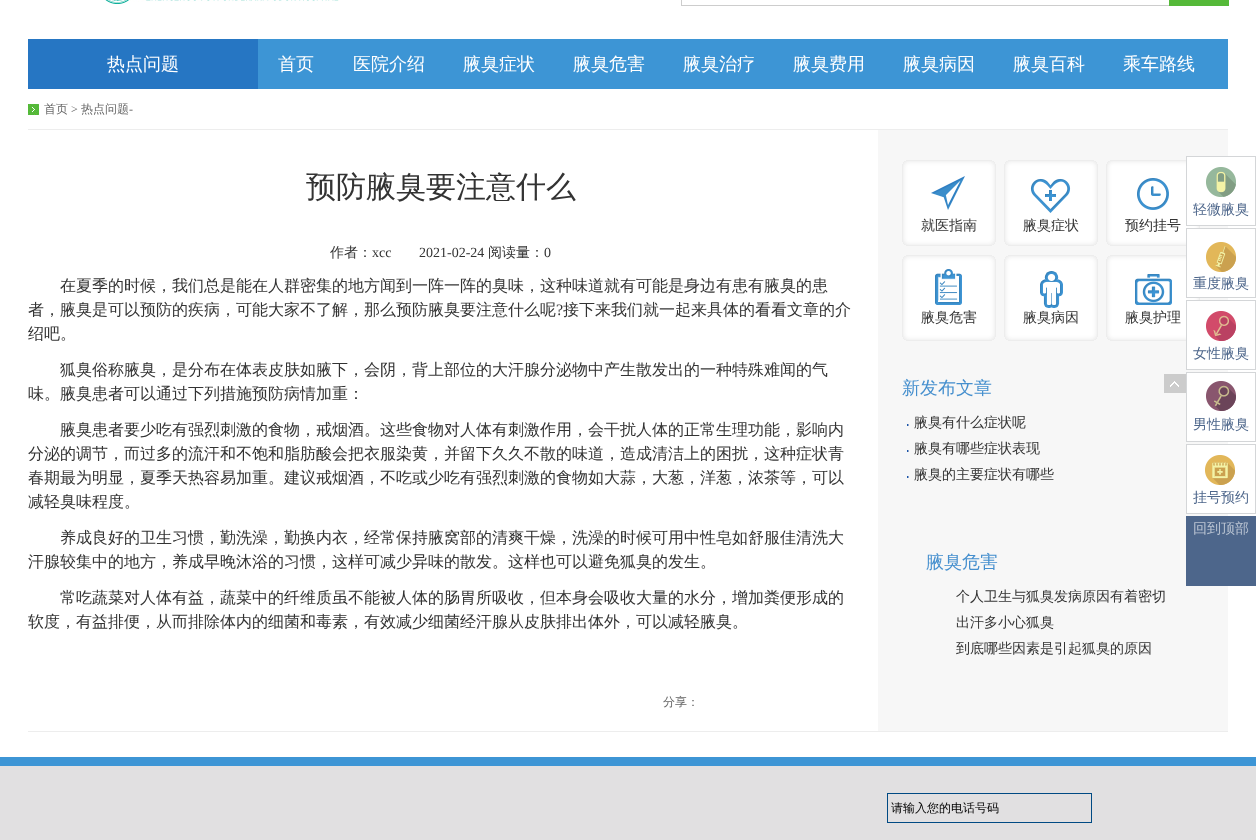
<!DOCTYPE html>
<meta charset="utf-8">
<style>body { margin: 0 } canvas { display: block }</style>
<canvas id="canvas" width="1256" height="840"></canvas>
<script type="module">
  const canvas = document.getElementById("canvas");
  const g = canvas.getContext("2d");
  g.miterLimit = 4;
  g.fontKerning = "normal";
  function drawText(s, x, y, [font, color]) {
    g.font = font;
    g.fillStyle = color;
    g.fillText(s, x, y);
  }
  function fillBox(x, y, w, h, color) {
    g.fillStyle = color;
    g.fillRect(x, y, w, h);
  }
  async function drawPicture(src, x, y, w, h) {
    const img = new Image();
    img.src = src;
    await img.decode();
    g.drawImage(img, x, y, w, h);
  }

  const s1 = ["500 18px WenQuanYi Zen Hei", "#FFFFFF"];
  const s2 = ["500 12px WenQuanYi Zen Hei", "#666666"];
  const s3 = ["12px Liberation Serif", "#666666"];
  const s4 = ["500 30px WenQuanYi Zen Hei", "#333333"];
  const s5 = ["500 14px WenQuanYi Zen Hei", "#333333"];
  const s6 = ["14px Liberation Serif", "#333333"];
  const s7 = ["500 16px WenQuanYi Zen Hei", "#333333"];
  const s8 = ["16px Liberation Serif", "#333333"];
  const s9 = ["500 18px WenQuanYi Zen Hei", "#458FCE"];
  const s10 = ["500 14px WenQuanYi Zen Hei", "#4D668B"];
  const s11 = ["500 14px WenQuanYi Zen Hei", "#BBC5D3"];
  const s12 = ["500 12px WenQuanYi Zen Hei", "#000000"];

  fillBox(0, 0, 1256, 840, "#FFFFFF");
  await drawPicture("pic1.png", 105, 0, 234, 4);
  g.strokeStyle = "#CDCDCD";
  g.strokeRect(681.5, -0.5, 546, 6);
  fillBox(1169, 0, 60, 6, "#55B939");
  fillBox(258, 39, 970, 50, "#3D95D5");
  fillBox(28, 39, 230, 50, "#2676C3");
  drawText("热点问题", 107, 70, s1);
  drawText("首页", 278, 70, s1);
  drawText("医院介绍", 353, 70, s1);
  drawText("腋臭症状", 463, 70, s1);
  drawText("腋臭危害", 573, 70, s1);
  drawText("腋臭治疗", 683, 70, s1);
  drawText("腋臭费用", 793, 70, s1);
  drawText("腋臭病因", 903, 70, s1);
  drawText("腋臭百科", 1013, 70, s1);
  drawText("乘车路线", 1123, 70, s1);
  await drawPicture("pic2.png", 28, 104, 11, 11);
  drawText("首页", 44, 113, s2);
  drawText(">", 71, 113, s3);
  drawText("热点问题", 81, 113, s2);
  drawText("-", 129, 113, s3);
  fillBox(878, 130, 350, 601, "#F7F7F7");
  fillBox(28, 129, 1200, 1, "#EDEDED");
  fillBox(28, 731, 1200, 1, "#EDEDED");
  drawText("预防腋臭要注意什么", 306, 197, s4);
  drawText("作者：", 330, 257, s5);
  drawText("xcc", 372, 257, s6);
  drawText("2021-02-24", 419, 257, s6);
  drawText("阅读量：", 488, 257, s5);
  drawText("0", 544, 257, s6);
  drawText("在夏季的时候，我们总是能在人群密集的地方闻到一阵一阵的臭味，这种味道就有可能是身边有患有腋臭的患", 60, 291, s7);
  drawText("者，腋臭是可以预防的疾病，可能大家不了解，那么预防腋臭要注意什么呢", 28, 315, s7);
  drawText("?", 556, 315, s8);
  drawText("接下来我们就一起来具体的看看文章的介", 563, 315, s7);
  drawText("绍吧。", 28, 339, s7);
  drawText("狐臭俗称腋臭，是分布在体表皮肤如腋下，会阴，背上部位的大汗腺分泌物中产生散发出的一种特殊难闻的气", 60, 375, s7);
  drawText("味。腋臭患者可以通过下列措施预防病情加重：", 28, 399, s7);
  drawText("腋臭患者要少吃有强烈刺激的食物，戒烟酒。这些食物对人体有刺激作用，会干扰人体的正常生理功能，影响内", 60, 435, s7);
  drawText("分泌的调节，而过多的流汗和不饱和脂肪酸会把衣服染黄，并留下久久不散的味道，造成清洁上的困扰，这种症状青", 28, 459, s7);
  drawText("春期最为明显，夏季天热容易加重。建议戒烟酒，不吃或少吃有强烈刺激的食物如大蒜，大葱，洋葱，浓茶等，可以", 28, 483, s7);
  drawText("减轻臭味程度。", 28, 507, s7);
  drawText("养成良好的卫生习惯，勤洗澡，勤换内衣，经常保持腋窝部的清爽干燥，洗澡的时候可用中性皂如舒服佳清洗大", 60, 543, s7);
  drawText("汗腺较集中的地方，养成早晚沐浴的习惯，这样可减少异味的散发。这样也可以避免狐臭的发生。", 28, 567, s7);
  drawText("常吃蔬菜对人体有益，蔬菜中的纤维质虽不能被人体的肠胃所吸收，但本身会吸收大量的水分，增加粪便形成的", 60, 603, s7);
  drawText("软度，有益排便，从而排除体内的细菌和毒素，有效减少细菌经汗腺从皮肤排出体外，可以减轻腋臭。", 28, 627, s7);
  drawText("分享：", 663, 706, s2);
  await drawPicture("pic3.png", 902, 160, 94, 86);
  drawText("就医指南", 921, 230, s5);
  await drawPicture("pic4.png", 1004, 160, 94, 86);
  drawText("腋臭症状", 1023, 230, s5);
  await drawPicture("pic5.png", 1106, 160, 94, 86);
  drawText("预约挂号", 1125, 230, s5);
  await drawPicture("pic6.png", 902, 255, 94, 86);
  drawText("腋臭危害", 921, 322, s5);
  await drawPicture("pic7.png", 1004, 255, 94, 86);
  drawText("腋臭病因", 1023, 322, s5);
  await drawPicture("pic8.png", 1106, 255, 94, 86);
  drawText("腋臭护理", 1125, 322, s5);
  drawText("新发布文章", 902, 394, s9);
  await drawPicture("pic9.png", 1164, 374, 19, 19);
  await drawPicture("pic10.png", 1183, 374, 3, 19);
  await drawPicture("pic11.png", 907, 424, 2, 2);
  drawText("腋臭有什么症状呢", 914, 427, s5);
  await drawPicture("pic11.png", 907, 450, 2, 2);
  drawText("腋臭有哪些症状表现", 914, 453, s5);
  await drawPicture("pic11.png", 907, 476, 2, 2);
  drawText("腋臭的主要症状有哪些", 914, 479, s5);
  drawText("腋臭危害", 926, 568, s9);
  drawText("个人卫生与狐臭发病原因有着密切", 956, 601, s5);
  drawText("出汗多小心狐臭", 956, 627, s5);
  drawText("到底哪些因素是引起狐臭的原因", 956, 653, s5);
  fillBox(1187, 157, 41, 68, "#FFFFFF");
  g.strokeStyle = "#D4D6D8";
  g.strokeRect(1186.5, 156.5, 69, 69);
  await drawPicture("pic12.png", 1206, 167, 30, 30);
  drawText("轻微腋臭", 1193, 214, s10);
  fillBox(1187, 229, 41, 68, "#FFFFFF");
  g.strokeRect(1186.5, 228.5, 69, 69);
  await drawPicture("pic13.png", 1206, 242, 30, 30);
  drawText("重度腋臭", 1193, 288, s10);
  fillBox(1187, 301, 41, 68, "#FFFFFF");
  g.strokeRect(1186.5, 300.5, 69, 69);
  await drawPicture("pic14.png", 1206, 311, 30, 30);
  drawText("女性腋臭", 1193, 358, s10);
  fillBox(1187, 373, 41, 68, "#FFFFFF");
  g.strokeRect(1186.5, 372.5, 69, 69);
  await drawPicture("pic15.png", 1206, 381, 30, 30);
  drawText("男性腋臭", 1193, 429, s10);
  fillBox(1187, 445, 41, 68, "#FFFFFF");
  g.strokeRect(1186.5, 444.5, 69, 69);
  await drawPicture("pic16.png", 1205, 455, 30, 30);
  drawText("挂号预约", 1193, 502, s10);
  fillBox(1186, 516, 70, 70, "#4D668B");
  drawText("回到顶部", 1193, 533, s11);
  fillBox(0, 757, 1256, 9, "#3D95D5");
  fillBox(0, 766, 1256, 74, "#E1E0E1");
  g.strokeStyle = "#004A83";
  g.strokeRect(887.5, 793.5, 204, 29);
  drawText("请输入您的电话号码", 891, 812, s12);
</script>
